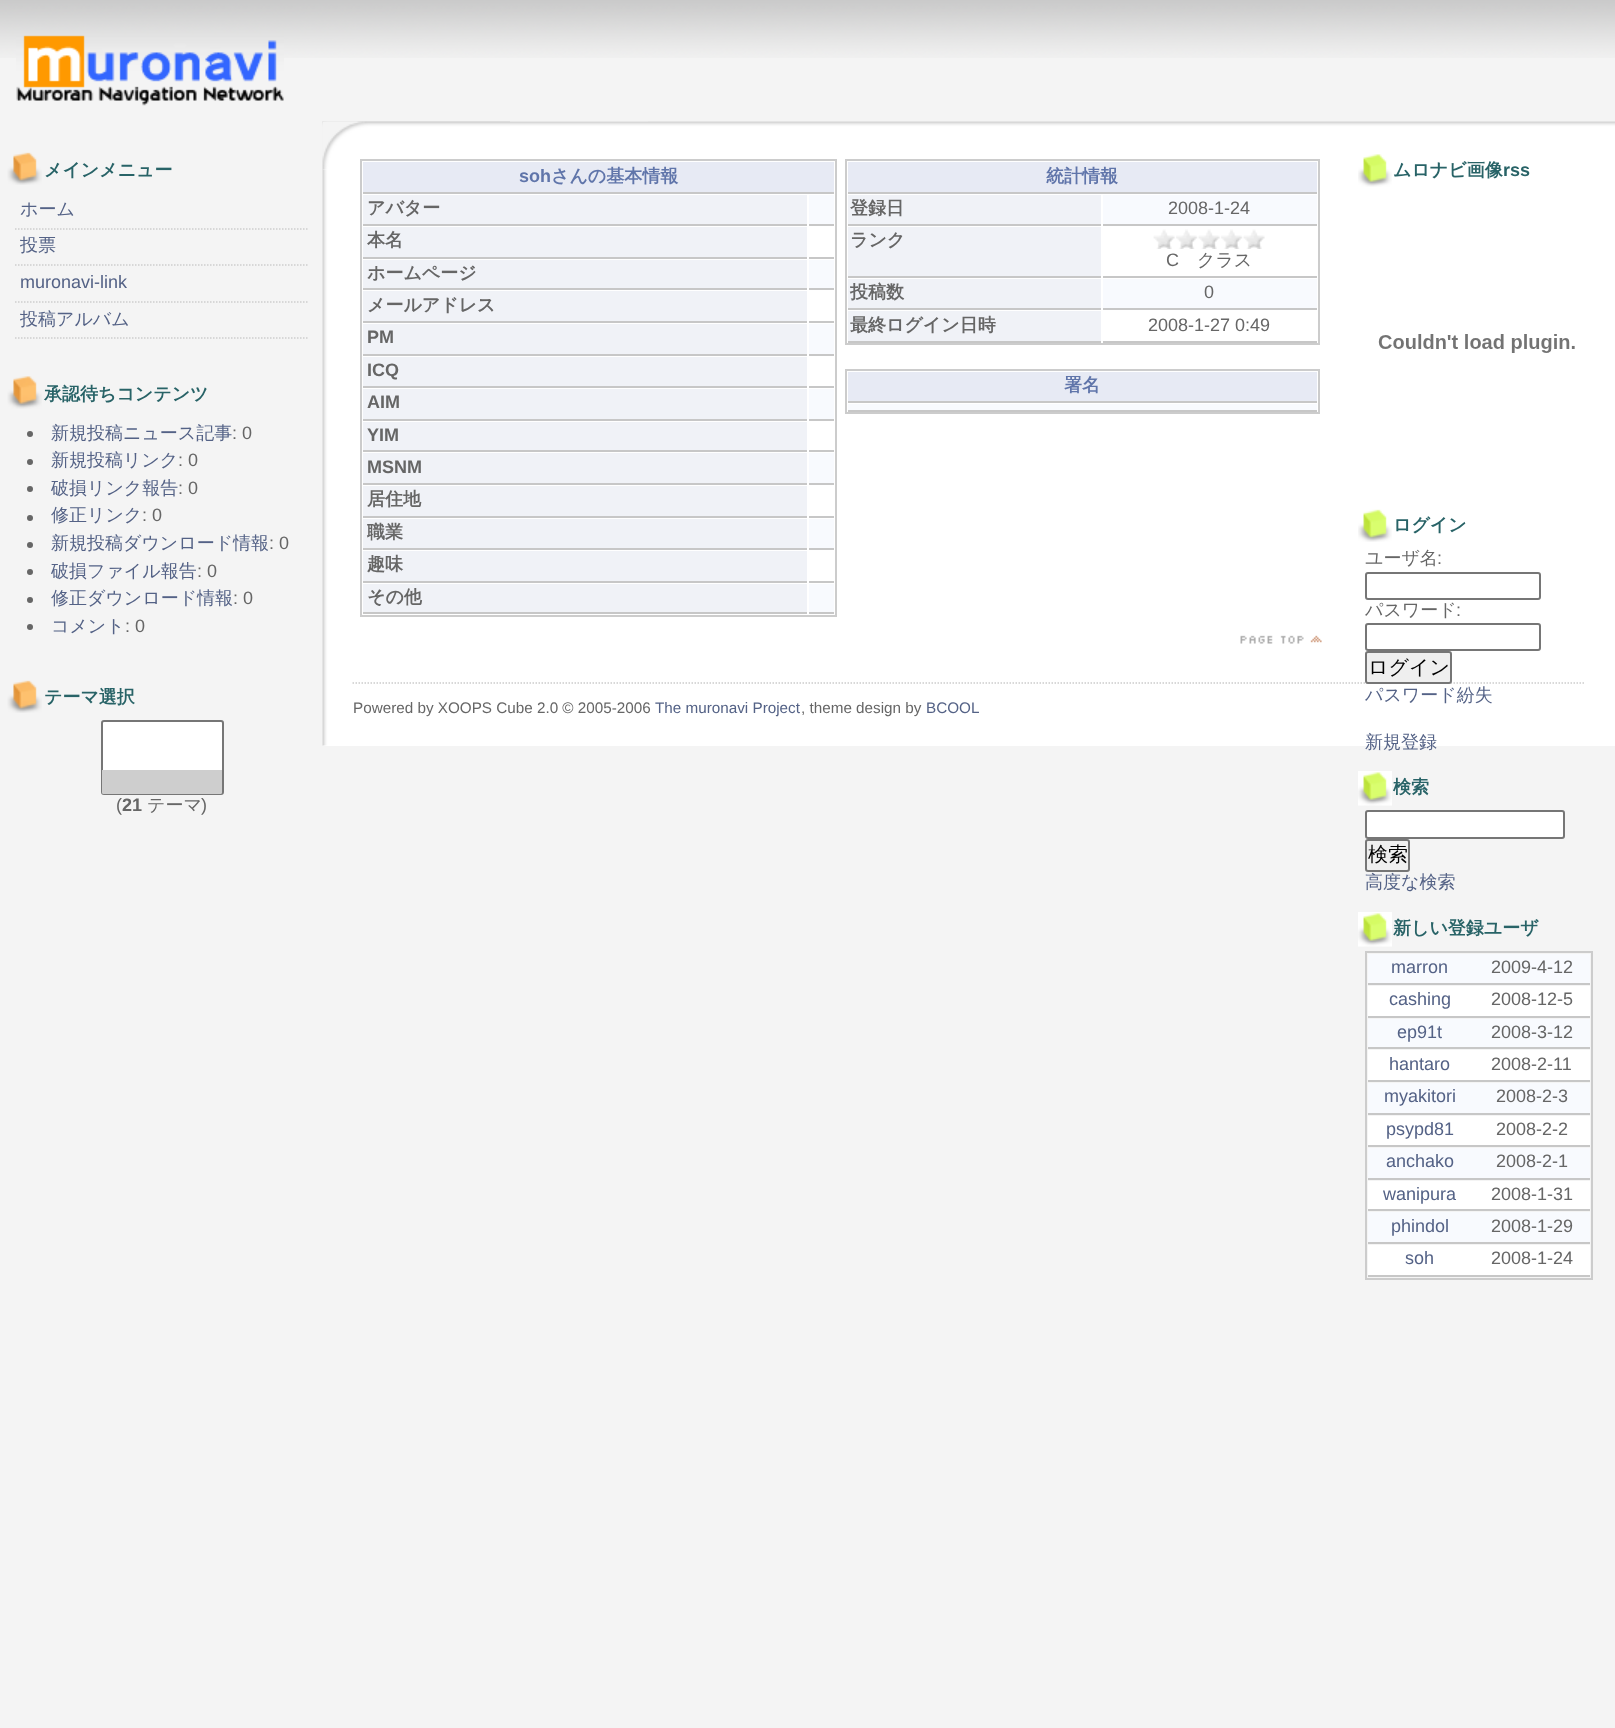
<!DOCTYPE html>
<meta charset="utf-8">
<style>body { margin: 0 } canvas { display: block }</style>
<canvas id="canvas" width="1615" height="1728"></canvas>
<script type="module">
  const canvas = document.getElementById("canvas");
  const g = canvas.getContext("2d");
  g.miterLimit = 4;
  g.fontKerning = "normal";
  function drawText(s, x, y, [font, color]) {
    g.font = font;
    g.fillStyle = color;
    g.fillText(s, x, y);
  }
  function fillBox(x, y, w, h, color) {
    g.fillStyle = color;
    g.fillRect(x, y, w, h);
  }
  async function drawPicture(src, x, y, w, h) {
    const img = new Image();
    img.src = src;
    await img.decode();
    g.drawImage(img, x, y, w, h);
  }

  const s1 = ["bold 18px WenQuanYi Zen Hei", "#286367"];
  const s2 = ["500 18px WenQuanYi Zen Hei", "#546286"];
  const s3 = ["18px Liberation Sans", "#546286"];
  const s4 = ["18px Liberation Sans", "#666666"];
  const s5 = ["bold 18px Liberation Sans", "#666666"];
  const s6 = ["500 18px WenQuanYi Zen Hei", "#666666"];
  const s7 = ["bold 18px Liberation Sans", "#6075AA"];
  const s8 = ["bold 18px WenQuanYi Zen Hei", "#6075AA"];
  const s9 = ["bold 18px WenQuanYi Zen Hei", "#666666"];
  const s10 = ["bold 18px Liberation Sans", "#286367"];
  const s11 = ["500 20px WenQuanYi Zen Hei", "#000000"];
  const s12 = ["15.25px Liberation Sans", "#666666"];
  const s13 = ["15.25px Liberation Sans", "#546286"];

  fillBox(0, 0, 1615, 1728, "#F4F4F4");
  await drawPicture("pic1.png", 0, 0, 1615, 58);
  await drawPicture("pic2.png", 16, 35, 268, 71);
  await drawPicture("pic3.png", 7, 152, 35, 33);
  drawText("メインメニュー", 44, 176, s1);
  g.beginPath();
  g.moveTo(15, 229);
  g.lineTo(307.5, 229);
  g.strokeStyle = "#CDCDCD";
  g.lineWidth = 1.5;
  g.setLineDash([1.5, 1.5]);
  g.stroke();
  drawText("ホーム", 20, 215, s2);
  g.beginPath();
  g.moveTo(15, 265);
  g.lineTo(307.5, 265);
  g.stroke();
  drawText("投票", 20, 251, s2);
  g.beginPath();
  g.moveTo(15, 302);
  g.lineTo(307.5, 302);
  g.stroke();
  drawText("muronavi-link", 20, 288, s3);
  g.beginPath();
  g.moveTo(15, 338);
  g.lineTo(307.5, 338);
  g.stroke();
  drawText("投稿アルバム", 20, 325, s2);
  await drawPicture("pic4.png", 7, 376, 35, 33);
  drawText("承認待ちコンテンツ", 44, 400, s1);
  g.fillStyle = "#666666";
  g.beginPath();
  g.arc(30, 434, 3, 0, Math.PI * 2);
  g.fill();
  drawText("新規投稿ニュース記事", 51, 439, s2);
  drawText(": 0", 232, 439, s4);
  g.beginPath();
  g.arc(30, 462, 3, 0, Math.PI * 2);
  g.fill();
  drawText("新規投稿リンク", 51, 466, s2);
  drawText(": 0", 178, 466, s4);
  g.beginPath();
  g.arc(30, 489, 3, 0, Math.PI * 2);
  g.fill();
  drawText("破損リンク報告", 51, 494, s2);
  drawText(": 0", 178, 494, s4);
  g.beginPath();
  g.arc(30, 518, 3, 0, Math.PI * 2);
  g.fill();
  drawText("修正リンク", 51, 521, s2);
  drawText(": 0", 142, 521, s4);
  g.beginPath();
  g.arc(30, 545, 3, 0, Math.PI * 2);
  g.fill();
  drawText("新規投稿ダウンロード情報", 51, 549, s2);
  drawText(": 0", 269, 549, s4);
  g.beginPath();
  g.arc(30, 572, 3, 0, Math.PI * 2);
  g.fill();
  drawText("破損ファイル報告", 51, 577, s2);
  drawText(": 0", 197, 577, s4);
  g.beginPath();
  g.arc(30, 600, 3, 0, Math.PI * 2);
  g.fill();
  drawText("修正ダウンロード情報", 51, 604, s2);
  drawText(": 0", 233, 604, s4);
  g.beginPath();
  g.arc(30, 627, 3, 0, Math.PI * 2);
  g.fill();
  drawText("コメント", 51, 632, s2);
  drawText(": 0", 125, 632, s4);
  await drawPicture("pic3.png", 7, 680, 35, 33);
  drawText("テーマ選択", 44, 703, s1);
  g.fillStyle = "#FFFFFF";
  g.beginPath();
  g.roundRect(102, 721, 121, 73, 2);
  g.fill();
  g.strokeStyle = "#767676";
  g.lineWidth = 2;
  g.setLineDash([]);
  g.stroke();
  g.fillStyle = "#CECECE";
  g.beginPath();
  g.roundRect(102, 770, 120, 24, [0, 0, 1.5, 1.5]);
  g.fill();
  drawText("(", 116, 811, s4);
  drawText("21", 122, 811, s5);
  drawText("テーマ", 147, 811, s6);
  drawText(")", 201, 811, s4);
  fillBox(323, 169, 1292, 577, "#FFFFFF");
  await drawPicture("pic5.png", 322, 121, 326, 625);
  await drawPicture("pic6.png", 322, 121, 1293, 49);
  await drawPicture("pic7.png", 322, 121, 188, 49);
  g.strokeStyle = "#CCCCCC";
  g.strokeRect(361, 160, 475, 456);
  fillBox(363, 162, 471, 30, "#E7EAF4");
  fillBox(363, 192, 471, 2, "#C7C7C7");
  drawText("soh", 519, 182, s7);
  drawText("さんの基本情報", 551, 182, s8);
  fillBox(363, 195, 444, 29, "#F0F2F7");
  fillBox(363, 224, 444, 2, "#C7C7C7");
  drawText("アバター", 367, 214, s9);
  fillBox(809, 195, 25, 29, "#F8FAFE");
  fillBox(809, 224, 25, 2, "#C7C7C7");
  fillBox(363, 227, 444, 30, "#F0F2F7");
  fillBox(363, 257, 444, 2, "#C7C7C7");
  drawText("本名", 367, 246, s9);
  fillBox(809, 257, 25, 2, "#C7C7C7");
  fillBox(363, 260, 444, 28, "#F0F2F7");
  fillBox(363, 288, 444, 2, "#C7C7C7");
  drawText("ホームページ", 367, 279, s9);
  fillBox(809, 260, 25, 28, "#F8FAFE");
  fillBox(809, 288, 25, 2, "#C7C7C7");
  fillBox(363, 291, 444, 30, "#F0F2F7");
  fillBox(363, 321, 444, 2, "#C7C7C7");
  drawText("メールアドレス", 367, 311, s9);
  fillBox(809, 321, 25, 2, "#C7C7C7");
  fillBox(363, 324, 444, 30, "#F0F2F7");
  fillBox(363, 354, 444, 2, "#C7C7C7");
  drawText("PM", 367, 343, s5);
  fillBox(809, 324, 25, 30, "#F8FAFE");
  fillBox(809, 354, 25, 2, "#C7C7C7");
  fillBox(363, 357, 444, 29, "#F0F2F7");
  fillBox(363, 386, 444, 2, "#C7C7C7");
  drawText("ICQ", 367, 376, s5);
  fillBox(809, 386, 25, 2, "#C7C7C7");
  fillBox(363, 389, 444, 30, "#F0F2F7");
  fillBox(363, 419, 444, 2, "#C7C7C7");
  drawText("AIM", 367, 408, s5);
  fillBox(809, 389, 25, 30, "#F8FAFE");
  fillBox(809, 419, 25, 2, "#C7C7C7");
  fillBox(363, 422, 444, 28, "#F0F2F7");
  fillBox(363, 450, 444, 2, "#C7C7C7");
  drawText("YIM", 367, 441, s5);
  fillBox(809, 450, 25, 2, "#C7C7C7");
  fillBox(363, 453, 444, 30, "#F0F2F7");
  fillBox(363, 483, 444, 2, "#C7C7C7");
  drawText("MSNM", 367, 473, s5);
  fillBox(809, 453, 25, 30, "#F8FAFE");
  fillBox(809, 483, 25, 2, "#C7C7C7");
  fillBox(363, 486, 444, 30, "#F0F2F7");
  fillBox(363, 516, 444, 2, "#C7C7C7");
  drawText("居住地", 367, 505, s9);
  fillBox(809, 516, 25, 2, "#C7C7C7");
  fillBox(363, 519, 444, 29, "#F0F2F7");
  fillBox(363, 548, 444, 2, "#C7C7C7");
  drawText("職業", 367, 538, s9);
  fillBox(809, 519, 25, 29, "#F8FAFE");
  fillBox(809, 548, 25, 2, "#C7C7C7");
  fillBox(363, 551, 444, 30, "#F0F2F7");
  fillBox(363, 581, 444, 2, "#C7C7C7");
  drawText("趣味", 367, 570, s9);
  fillBox(809, 581, 25, 2, "#C7C7C7");
  fillBox(363, 584, 444, 28, "#F0F2F7");
  fillBox(363, 612, 444, 2, "#C7C7C7");
  drawText("その他", 367, 603, s9);
  fillBox(809, 584, 25, 28, "#F8FAFE");
  fillBox(809, 612, 25, 2, "#C7C7C7");
  g.strokeRect(846, 160, 473, 184);
  fillBox(848, 162, 469, 30, "#E7EAF4");
  fillBox(848, 192, 469, 2, "#C7C7C7");
  drawText("統計情報", 1046, 182, s8);
  fillBox(848, 195, 253, 29, "#F0F2F7");
  fillBox(848, 224, 253, 2, "#C7C7C7");
  drawText("登録日", 850, 214, s9);
  fillBox(1103, 195, 214, 29, "#F8FAFE");
  fillBox(1103, 224, 214, 2, "#C7C7C7");
  drawText("2008-1-24", 1168, 214, s4);
  fillBox(848, 227, 253, 49, "#F0F2F7");
  fillBox(848, 276, 253, 2, "#C7C7C7");
  drawText("ランク", 850, 246, s9);
  fillBox(1103, 276, 214, 2, "#C7C7C7");
  await drawPicture("pic8.png", 1153, 229, 112, 20);
  drawText("C", 1166, 266, s4);
  drawText("クラス", 1197, 266, s6);
  fillBox(848, 279, 253, 29, "#F0F2F7");
  fillBox(848, 308, 253, 2, "#C7C7C7");
  drawText("投稿数", 850, 298, s9);
  fillBox(1103, 279, 214, 29, "#F8FAFE");
  fillBox(1103, 308, 214, 2, "#C7C7C7");
  drawText("0", 1204, 298, s4);
  fillBox(848, 311, 253, 30, "#F0F2F7");
  fillBox(848, 341, 253, 2, "#C7C7C7");
  drawText("最終ログイン日時", 850, 331, s9);
  fillBox(1103, 341, 214, 2, "#C7C7C7");
  drawText("2008-1-27 0:49", 1148, 331, s4);
  g.strokeRect(846, 370, 473, 43);
  fillBox(848, 372, 469, 29, "#E7EAF4");
  fillBox(848, 401, 469, 2, "#C7C7C7");
  drawText("署名", 1064, 391, s8);
  fillBox(848, 404, 469, 6, "#F8FAFE");
  fillBox(848, 410, 469, 2, "#C7C7C7");
  await drawPicture("pic9.png", 1240, 635, 82, 9);
  await drawPicture("pic10.png", 1358, 154, 34, 33);
  drawText("ムロナビ画像", 1393, 176, s1);
  drawText("rss", 1503, 176, s10);
  await drawPicture("pic11.png", 1378, 334, 197, 19);
  await drawPicture("pic12.png", 1358, 509, 34, 33);
  drawText("ログイン", 1393, 531, s1);
  drawText("ユーザ名", 1365, 564, s6);
  drawText(":", 1437, 564, s4);
  g.beginPath();
  g.roundRect(1366, 573, 174, 26, 2);
  g.strokeStyle = "#767676";
  g.stroke();
  drawText("パスワード", 1365, 616, s6);
  drawText(":", 1456, 616, s4);
  g.beginPath();
  g.roundRect(1366, 624, 174, 26, 2);
  g.stroke();
  g.beginPath();
  g.moveTo(352.5, 683);
  g.lineTo(1585.5, 683);
  g.strokeStyle = "#CCCCCC";
  g.lineWidth = 1.5;
  g.setLineDash([1.5, 1.5]);
  g.stroke();
  g.fillStyle = "#EFEFEF";
  g.beginPath();
  g.roundRect(1366, 652, 85, 31, 2);
  g.fill();
  g.strokeStyle = "#767676";
  g.lineWidth = 2;
  g.setLineDash([]);
  g.stroke();
  drawText("ログイン", 1368, 674, s11);
  drawText("パスワード紛失", 1365, 701, s2);
  drawText("新規登録", 1365, 748, s2);
  await drawPicture("pic13.png", 1358, 771, 34, 35);
  drawText("検索", 1393, 793, s1);
  g.fillStyle = "#FFFFFF";
  g.beginPath();
  g.roundRect(1366, 811, 198, 27, 2);
  g.fill();
  g.stroke();
  g.fillStyle = "#EFEFEF";
  g.beginPath();
  g.roundRect(1366, 840, 43, 31, 2);
  g.fill();
  g.stroke();
  drawText("検索", 1368, 861, s11);
  drawText("高度な検索", 1365, 888, s2);
  await drawPicture("pic13.png", 1358, 912, 34, 35);
  drawText("新しい登録ユーザ", 1393, 934, s1);
  g.strokeStyle = "#CCCCCC";
  g.strokeRect(1366, 952, 226, 327);
  fillBox(1368, 954, 222, 29, "#F8FAFE");
  fillBox(1368, 983, 222, 2, "#C7C7C7");
  drawText("marron", 1391, 973, s3);
  drawText("2009-4-12", 1491, 973, s4);
  fillBox(1368, 986, 222, 30, "#FFFFFF");
  fillBox(1368, 1016, 222, 2, "#C7C7C7");
  drawText("cashing", 1389, 1005, s3);
  drawText("2008-12-5", 1491, 1005, s4);
  fillBox(1368, 1019, 222, 28, "#F8FAFE");
  fillBox(1368, 1047, 222, 2, "#C7C7C7");
  drawText("ep91t", 1397, 1038, s3);
  drawText("2008-3-12", 1491, 1038, s4);
  fillBox(1368, 1050, 222, 30, "#FFFFFF");
  fillBox(1368, 1080, 222, 2, "#C7C7C7");
  drawText("hantaro", 1389, 1070, s3);
  drawText("2008-2-11", 1491, 1070, s4);
  fillBox(1368, 1083, 222, 30, "#F8FAFE");
  fillBox(1368, 1113, 222, 2, "#C7C7C7");
  drawText("myakitori", 1384, 1102, s3);
  drawText("2008-2-3", 1496, 1102, s4);
  fillBox(1368, 1116, 222, 29, "#FFFFFF");
  fillBox(1368, 1145, 222, 2, "#C7C7C7");
  drawText("psypd81", 1386, 1135, s3);
  drawText("2008-2-2", 1496, 1135, s4);
  fillBox(1368, 1148, 222, 30, "#F8FAFE");
  fillBox(1368, 1178, 222, 2, "#C7C7C7");
  drawText("anchako", 1386, 1167, s3);
  drawText("2008-2-1", 1496, 1167, s4);
  fillBox(1368, 1181, 222, 28, "#FFFFFF");
  fillBox(1368, 1209, 222, 2, "#C7C7C7");
  drawText("wanipura", 1383, 1200, s3);
  drawText("2008-1-31", 1491, 1200, s4);
  fillBox(1368, 1212, 222, 30, "#F8FAFE");
  fillBox(1368, 1242, 222, 2, "#C7C7C7");
  drawText("phindol", 1391, 1232, s3);
  drawText("2008-1-29", 1491, 1232, s4);
  fillBox(1368, 1245, 222, 30, "#FFFFFF");
  fillBox(1368, 1275, 222, 2, "#C7C7C7");
  drawText("soh", 1405, 1264, s3);
  drawText("2008-1-24", 1491, 1264, s4);
  drawText("Powered by XOOPS Cube 2.0 © 2005-2006", 353, 713, s12);
  drawText("The muronavi Project", 655, 713, s13);
  drawText(", theme design by", 801, 713, s12);
  drawText("BCOOL", 926, 713, s13);
</script>
